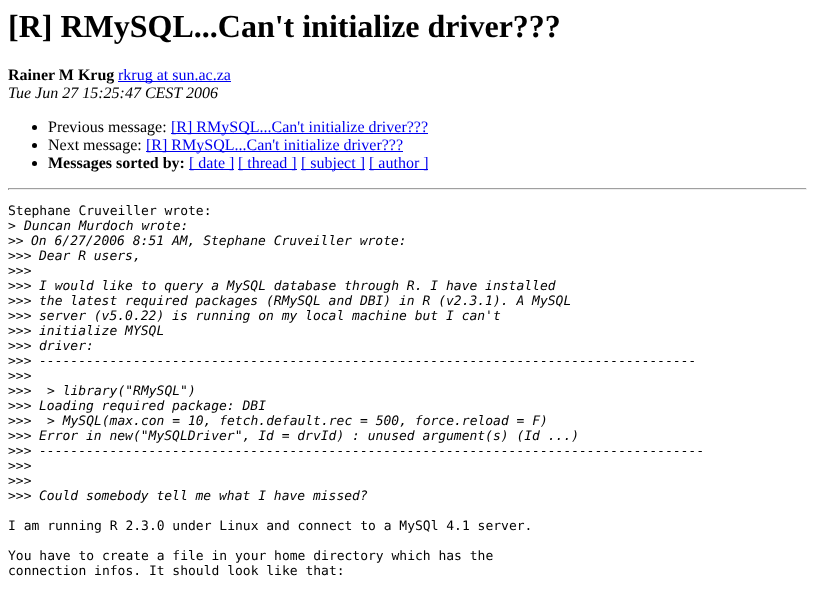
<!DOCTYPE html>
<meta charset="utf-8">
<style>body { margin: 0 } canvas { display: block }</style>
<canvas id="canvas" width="815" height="616"></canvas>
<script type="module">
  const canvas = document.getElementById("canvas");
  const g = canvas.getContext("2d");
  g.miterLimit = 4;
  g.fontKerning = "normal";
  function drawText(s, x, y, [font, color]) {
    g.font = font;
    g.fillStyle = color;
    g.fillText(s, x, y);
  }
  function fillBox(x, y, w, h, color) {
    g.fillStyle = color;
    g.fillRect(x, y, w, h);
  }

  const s1 = ["bold 32px Liberation Serif", "#000000"];
  const s2 = ["bold 16px Liberation Serif", "#000000"];
  const s3 = ["16px Liberation Serif", "#0000EE"];
  const s4 = ["italic 16px Liberation Serif", "#000000"];
  const s5 = ["16px Liberation Serif", "#000000"];
  const s6 = ["13px DejaVu Sans Mono", "#000000"];
  const s7 = ["italic 13px DejaVu Sans Mono", "#000000"];

  fillBox(0, 0, 815, 616, "#FFFFFF");
  drawText("[R] RMySQL...Can't initialize driver???", 8, 37, s1);
  drawText("Rainer M Krug", 8, 80, s2);
  fillBox(118, 81, 113, 1, "#0000EE");
  drawText("rkrug at sun.ac.za", 118, 80, s3);
  drawText("Tue Jun 27 15:25:47 CEST 2006", 8, 98, s4);
  g.beginPath();
  g.arc(34.5, 127.5, 2.5, 0, Math.PI * 2);
  g.fill();
  drawText("Previous message:", 48, 132, s5);
  fillBox(171, 133, 257, 1, "#0000EE");
  drawText("[R] RMySQL...Can't initialize driver???", 171, 132, s3);
  g.fillStyle = "#000000";
  g.beginPath();
  g.arc(34.5, 145.5, 2.5, 0, Math.PI * 2);
  g.fill();
  drawText("Next message:", 48, 150, s5);
  fillBox(146, 151, 257, 1, "#0000EE");
  drawText("[R] RMySQL...Can't initialize driver???", 146, 150, s3);
  g.fillStyle = "#000000";
  g.beginPath();
  g.arc(34.5, 163.5, 2.5, 0, Math.PI * 2);
  g.fill();
  drawText("Messages sorted by:", 48, 168, s2);
  fillBox(189, 169, 45, 1, "#0000EE");
  drawText("[ date ]", 189, 168, s3);
  fillBox(238, 169, 59, 1, "#0000EE");
  drawText("[ thread ]", 238, 168, s3);
  fillBox(301, 169, 64, 1, "#0000EE");
  drawText("[ subject ]", 301, 168, s3);
  fillBox(369, 169, 59, 1, "#0000EE");
  drawText("[ author ]", 369, 168, s3);
  fillBox(8, 188, 799, 1, "#9F9F9F");
  fillBox(806, 188, 1, 2, "#EEEEEE");
  fillBox(8, 189, 799, 1, "#EEEEEE");
  fillBox(8, 188, 1, 2, "#9F9F9F");
  drawText("Stephane Cruveiller wrote:", 8, 215, s6);
  drawText(">", 8, 230, s6);
  drawText("Duncan Murdoch wrote:", 24, 230, s7);
  drawText(">>", 8, 245, s6);
  drawText("On 6/27/2006 8:51 AM, Stephane Cruveiller wrote:", 31, 245, s7);
  drawText(">>>", 8, 260, s6);
  drawText("Dear R users,", 39, 260, s7);
  drawText(">>>", 8, 275, s6);
  drawText(">>>", 8, 290, s6);
  drawText("I would like to query a MySQL database through R. I have installed", 39, 290, s7);
  drawText(">>>", 8, 305, s6);
  drawText("the latest required packages (RMySQL and DBI) in R (v2.3.1). A MySQL", 39, 305, s7);
  drawText(">>>", 8, 320, s6);
  drawText("server (v5.0.22) is running on my local machine but I can't", 39, 320, s7);
  drawText(">>>", 8, 335, s6);
  drawText("initialize MYSQL", 39, 335, s7);
  drawText(">>>", 8, 350, s6);
  drawText("driver:", 39, 350, s7);
  drawText(">>>", 8, 365, s6);
  drawText("------------------------------------------------------------------------------------", 39, 365, s7);
  drawText(">>>", 8, 380, s6);
  drawText(">>>", 8, 395, s6);
  drawText("> library(\"RMySQL\")", 47, 395, s7);
  drawText(">>>", 8, 410, s6);
  drawText("Loading required package: DBI", 39, 410, s7);
  drawText(">>>", 8, 425, s6);
  drawText("> MySQL(max.con = 10, fetch.default.rec = 500, force.reload = F)", 47, 425, s7);
  drawText(">>>", 8, 440, s6);
  drawText("Error in new(\"MySQLDriver\", Id = drvId) : unused argument(s) (Id ...)", 39, 440, s7);
  drawText(">>>", 8, 455, s6);
  drawText("-------------------------------------------------------------------------------------", 39, 455, s7);
  drawText(">>>", 8, 470, s6);
  drawText(">>>", 8, 485, s6);
  drawText(">>>", 8, 500, s6);
  drawText("Could somebody tell me what I have missed?", 39, 500, s7);
  drawText("I am running R 2.3.0 under Linux and connect to a MySQl 4.1 server.", 8, 530, s6);
  drawText("You have to create a file in your home directory which has the", 8, 560, s6);
  drawText("connection infos. It should look like that:", 8, 575, s6);
</script>
